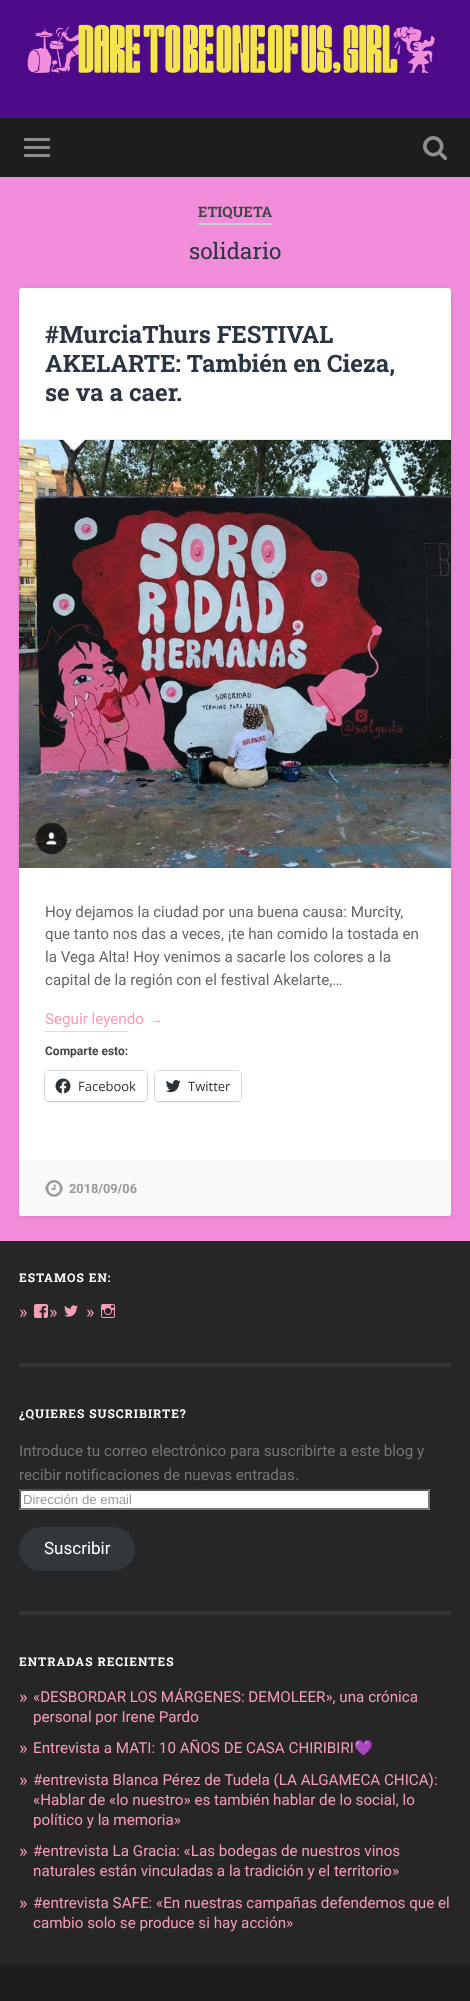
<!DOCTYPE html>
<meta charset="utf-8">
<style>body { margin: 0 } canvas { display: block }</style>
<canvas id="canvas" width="470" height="2001"></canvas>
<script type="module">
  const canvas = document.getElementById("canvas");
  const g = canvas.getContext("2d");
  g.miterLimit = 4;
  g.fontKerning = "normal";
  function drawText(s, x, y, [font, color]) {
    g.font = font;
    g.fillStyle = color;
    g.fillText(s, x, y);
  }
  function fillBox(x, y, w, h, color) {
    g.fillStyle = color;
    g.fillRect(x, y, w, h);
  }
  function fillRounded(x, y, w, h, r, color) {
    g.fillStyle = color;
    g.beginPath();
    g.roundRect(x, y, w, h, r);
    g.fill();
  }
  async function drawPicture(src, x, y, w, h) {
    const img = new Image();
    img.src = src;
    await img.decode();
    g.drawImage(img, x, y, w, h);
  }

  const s1 = ["bold 14.5px Roboto Slab", "#444444"];
  const s2 = ["22.5px Roboto Slab", "#2B3542"];
  const s3 = ["bold 24px Roboto Slab", "#2B3542"];
  const s4 = ["15.2px Roboto", "#666666"];
  const s5 = ["15.2px Roboto", "#F59DB5"];
  const s6 = ["15.2px Liberation Sans", "#F59DB5"];
  const s7 = ["bold 12px Roboto", "#444444"];
  const s8 = ["13px Open Sans", "#2C3338"];
  const s9 = ["bold 12.75px Roboto", "#999999"];
  const s10 = ["bold 12px Roboto Slab", "#FFFFFF"];
  const s11 = ["18px Roboto", "#F59DB5"];
  const s12 = ["15.2px Roboto", "#767676"];
  const s13 = ["13.25px Liberation Sans", "#999999"];
  const s14 = ["17px Roboto", "#FFFFFF"];
  const s15 = ["15.2px Noto Color Emoji", "#F59DB5"];

  fillBox(0, 0, 470, 2001, "#F28DDB");
  fillBox(0, 0, 470, 118, "#4D0B89");
  await drawPicture("pic1.png", 27, 24, 408, 49);
  fillBox(0, 118, 470, 59, "#1D1D1D");
  fillRounded(24, 138, 26, 3, 1, "#8E8E8E");
  fillRounded(24, 146, 26, 3, 1, "#8E8E8E");
  fillRounded(24, 154, 26, 3, 1, "#8E8E8E");
  await drawPicture("pic2.png", 423, 136, 24, 24);
  fillBox(198, 223, 74, 2, "#CCCCCC");
  drawText("ETIQUETA", 198, 217, s1);
  drawText("solidario", 189, 259, s2);
  g.fillStyle = "rgba(0, 0, 0, 0.1)";
  g.filter = "blur(2px)";
  g.beginPath();
  g.roundRect(19, 289, 432, 928, 3);
  g.fill();
  g.filter = "none";
  fillRounded(19, 288, 432, 928, 3, "#FFFFFF");
  fillBox(19, 439, 432, 1, "#EEEEEE");
  drawText("#MurciaThurs FESTIVAL", 45, 343, s3);
  drawText("AKELARTE: También en Cieza,", 45, 372, s3);
  drawText("se va a caer.", 45, 401, s3);
  await drawPicture("pic3.png", 19, 440, 432, 428);
  g.fillStyle = "#EEEEEE";
  g.beginPath();
  g.moveTo(62, 439);
  g.lineTo(86, 439);
  g.lineTo(74, 451);
  g.closePath();
  g.fill();
  g.fillStyle = "#FFFFFF";
  g.beginPath();
  g.moveTo(63, 438);
  g.lineTo(85, 438);
  g.lineTo(74, 449);
  g.closePath();
  g.fill();
  drawText("Hoy dejamos la ciudad por una buena causa: Murcity,", 45, 917, s4);
  drawText("que tanto nos das a veces, ¡te han comido la tostada en", 45, 939, s4);
  drawText("la Vega Alta! Hoy venimos a sacarle los colores a la", 45, 962, s4);
  drawText("capital de la región con el festival Akelarte,…", 45, 985, s4);
  drawText("Seguir leyendo", 45, 1024, s5);
  drawText("→", 148, 1024, s6);
  fillBox(45, 1031, 83, 1, "#DCDCDE");
  drawText("Comparte esto:", 45, 1055, s7);
  g.beginPath();
  g.roundRect(44.5, 1070.5, 103, 31, 4.5);
  g.strokeStyle = "#E0E0E0";
  g.stroke();
  g.fillStyle = "rgba(0, 0, 0, 0.12)";
  g.filter = "blur(1px)";
  g.beginPath();
  g.roundRect(45, 1072, 102, 30, 4);
  g.fill();
  g.filter = "none";
  fillRounded(45, 1071, 102, 30, 4, "#FFFFFF");
  await drawPicture("pic4.png", 55, 1078, 16, 16);
  drawText("Facebook", 78, 1091, s8);
  g.beginPath();
  g.roundRect(154.5, 1070.5, 87, 31, 4.5);
  g.stroke();
  g.fillStyle = "rgba(0, 0, 0, 0.12)";
  g.filter = "blur(1px)";
  g.beginPath();
  g.roundRect(155, 1072, 86, 30, 4);
  g.fill();
  g.filter = "none";
  fillRounded(155, 1071, 86, 30, 4, "#FFFFFF");
  await drawPicture("pic5.png", 165, 1080, 16, 13);
  drawText("Twitter", 188, 1091, s8);
  g.fillStyle = "#F9F9F9";
  g.beginPath();
  g.roundRect(19, 1161, 432, 55, [0, 0, 3, 3]);
  g.fill();
  await drawPicture("pic6.png", 45, 1180, 18, 17);
  drawText("2018/09/06", 69, 1193, s9);
  fillBox(0, 1241, 470, 724, "#262626");
  g.letterSpacing = "1px";
  drawText("ESTAMOS EN:", 19, 1282, s10);
  g.letterSpacing = "0px";
  drawText("»", 19, 1318, s11);
  await drawPicture("pic7.png", 34, 1304, 14, 14);
  drawText("»", 49, 1318, s11);
  await drawPicture("pic8.png", 64, 1305, 14, 12);
  drawText("»", 86, 1318, s11);
  await drawPicture("pic9.png", 101, 1304, 14, 14);
  fillBox(19, 1363, 432, 4, "#333333");
  g.letterSpacing = "1px";
  drawText("¿QUIERES SUSCRIBIRTE?", 19, 1418, s10);
  g.letterSpacing = "0px";
  drawText("Introduce tu correo electrónico para suscribirte a este blog y", 19, 1456, s12);
  drawText("recibir notificaciones de nuevas entradas.", 19, 1480, s12);
  fillBox(19, 1489, 411, 21, "#FFFFFF");
  g.fillStyle = "#4F4F4F";
  g.beginPath();
  g.moveTo(19, 1489);
  g.lineTo(430, 1489);
  g.lineTo(428, 1491);
  g.lineTo(21, 1491);
  g.closePath();
  g.fill();
  g.fillStyle = "#767676";
  g.beginPath();
  g.moveTo(430, 1489);
  g.lineTo(430, 1510);
  g.lineTo(428, 1508);
  g.lineTo(428, 1491);
  g.closePath();
  g.fill();
  g.beginPath();
  g.moveTo(430, 1510);
  g.lineTo(19, 1510);
  g.lineTo(21, 1508);
  g.lineTo(428, 1508);
  g.closePath();
  g.fill();
  g.fillStyle = "#4F4F4F";
  g.beginPath();
  g.moveTo(19, 1510);
  g.lineTo(19, 1489);
  g.lineTo(21, 1491);
  g.lineTo(21, 1508);
  g.closePath();
  g.fill();
  drawText("Dirección de email", 23, 1504, s13);
  fillRounded(19, 1527, 116, 44, 22, "#32373C");
  drawText("Suscribir", 44, 1554, s14);
  fillBox(19, 1611, 432, 4, "#333333");
  g.letterSpacing = "1px";
  drawText("ENTRADAS RECIENTES", 19, 1666, s10);
  g.letterSpacing = "0px";
  drawText("»", 19, 1703, s11);
  drawText("«DESBORDAR LOS MÁRGENES: DEMOLEER», una crónica", 33, 1702, s5);
  drawText("personal por Irene Pardo", 33, 1722, s5);
  drawText("»", 19, 1754, s11);
  drawText("Entrevista a MATI: 10 AÑOS DE CASA CHIRIBIRI", 33, 1753, s5);
  drawText("💜", 354, 1753, s15);
  drawText("»", 19, 1786, s11);
  drawText("#entrevista Blanca Pérez de Tudela (LA ALGAMECA CHICA):", 33, 1785, s5);
  drawText("«Hablar de «lo nuestro» es también hablar de lo social, lo", 33, 1805, s5);
  drawText("político y la memoria»", 33, 1825, s5);
  drawText("»", 19, 1857, s11);
  drawText("#entrevista La Gracia: «Las bodegas de nuestros vinos", 33, 1856, s5);
  drawText("naturales están vinculadas a la tradición y el territorio»", 33, 1876, s5);
  drawText("»", 19, 1909, s11);
  drawText("#entrevista SAFE: «En nuestras campañas defendemos que el", 33, 1908, s5);
  drawText("cambio solo se produce si hay acción»", 33, 1928, s5);
  fillBox(0, 1965, 470, 36, "#1D1D1D");
</script>
